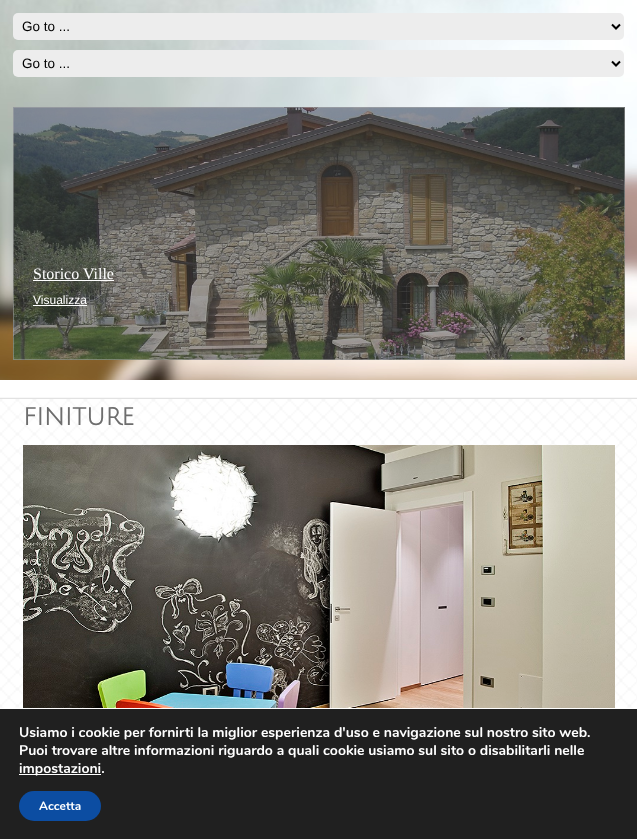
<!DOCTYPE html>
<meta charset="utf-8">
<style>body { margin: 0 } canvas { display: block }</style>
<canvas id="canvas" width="637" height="839"></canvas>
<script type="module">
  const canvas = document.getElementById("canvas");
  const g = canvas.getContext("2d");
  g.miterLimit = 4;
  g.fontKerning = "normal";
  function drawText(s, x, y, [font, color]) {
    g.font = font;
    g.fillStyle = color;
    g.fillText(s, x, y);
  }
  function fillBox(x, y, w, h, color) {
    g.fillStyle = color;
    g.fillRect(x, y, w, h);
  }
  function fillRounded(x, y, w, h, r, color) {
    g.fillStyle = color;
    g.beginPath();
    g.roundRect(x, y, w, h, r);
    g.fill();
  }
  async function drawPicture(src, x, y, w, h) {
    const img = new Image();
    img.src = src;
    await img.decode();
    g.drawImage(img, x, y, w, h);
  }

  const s1 = ["13.5px Liberation Sans", "#000000"];
  const s2 = ["16px Liberation Serif", "#FFFFFF"];
  const s3 = ["12px Liberation Sans", "#FFFFFF"];
  const s4 = ["bold 24px Julius Sans One", "#6D6D6D"];
  const s5 = ["bold 14px Nunito", "#FFFFFF"];
  const s6 = ["bold 12px Nunito", "#FFFFFF"];

  fillBox(0, 0, 637, 839, "#FFFFFF");
  await drawPicture("pic1.png", 0, 399, 637, 309);
  await drawPicture("pic2.png", 0, 380, 637, 19);
  await drawPicture("pic3.png", 0, 0, 637, 380);
  fillRounded(13, 13, 611, 27, 5, "#EDEDED");
  g.beginPath();
  g.moveTo(612, 24.5);
  g.lineTo(616, 28.5);
  g.lineTo(620, 24.5);
  g.strokeStyle = "#000000";
  g.lineWidth = 2;
  g.stroke();
  drawText("Go to ...", 22, 31, s1);
  fillRounded(13, 50, 611, 27, 5, "#EDEDED");
  g.beginPath();
  g.moveTo(612, 61.5);
  g.lineTo(616, 65.5);
  g.lineTo(620, 61.5);
  g.stroke();
  drawText("Go to ...", 22, 68, s1);
  await drawPicture("pic4.png", 13, 107, 612, 253);
  g.strokeStyle = "rgba(170, 170, 170, 0.5)";
  g.lineWidth = 1;
  g.strokeRect(13.5, 107.5, 611, 252);
  drawText("Storico Ville", 33, 279, s2);
  fillBox(33, 280, 81, 1, "#FFFFFF");
  drawText("Visualizza", 33, 304, s3);
  fillBox(33, 305, 54, 1, "#FFFFFF");
  drawText("FINITURE", 23, 425, s4);
  await drawPicture("pic5.png", 23, 445, 592, 263);
  fillBox(0, 709, 637, 130, "#202020");
  drawText("Usiamo i cookie per fornirti la miglior esperienza d'uso e navigazione sul nostro sito web.", 19, 737, s5);
  drawText("Puoi trovare altre informazioni riguardo a quali cookie usiamo sul sito o disabilitarli nelle", 19, 755, s5);
  fillBox(19, 774, 82, 1, "#FFFFFF");
  drawText("impostazioni.", 19, 773, s5);
  fillRounded(19, 791, 82, 30, 15, "#0C4DA2");
  drawText("Accetta", 39, 810, s6);
</script>
